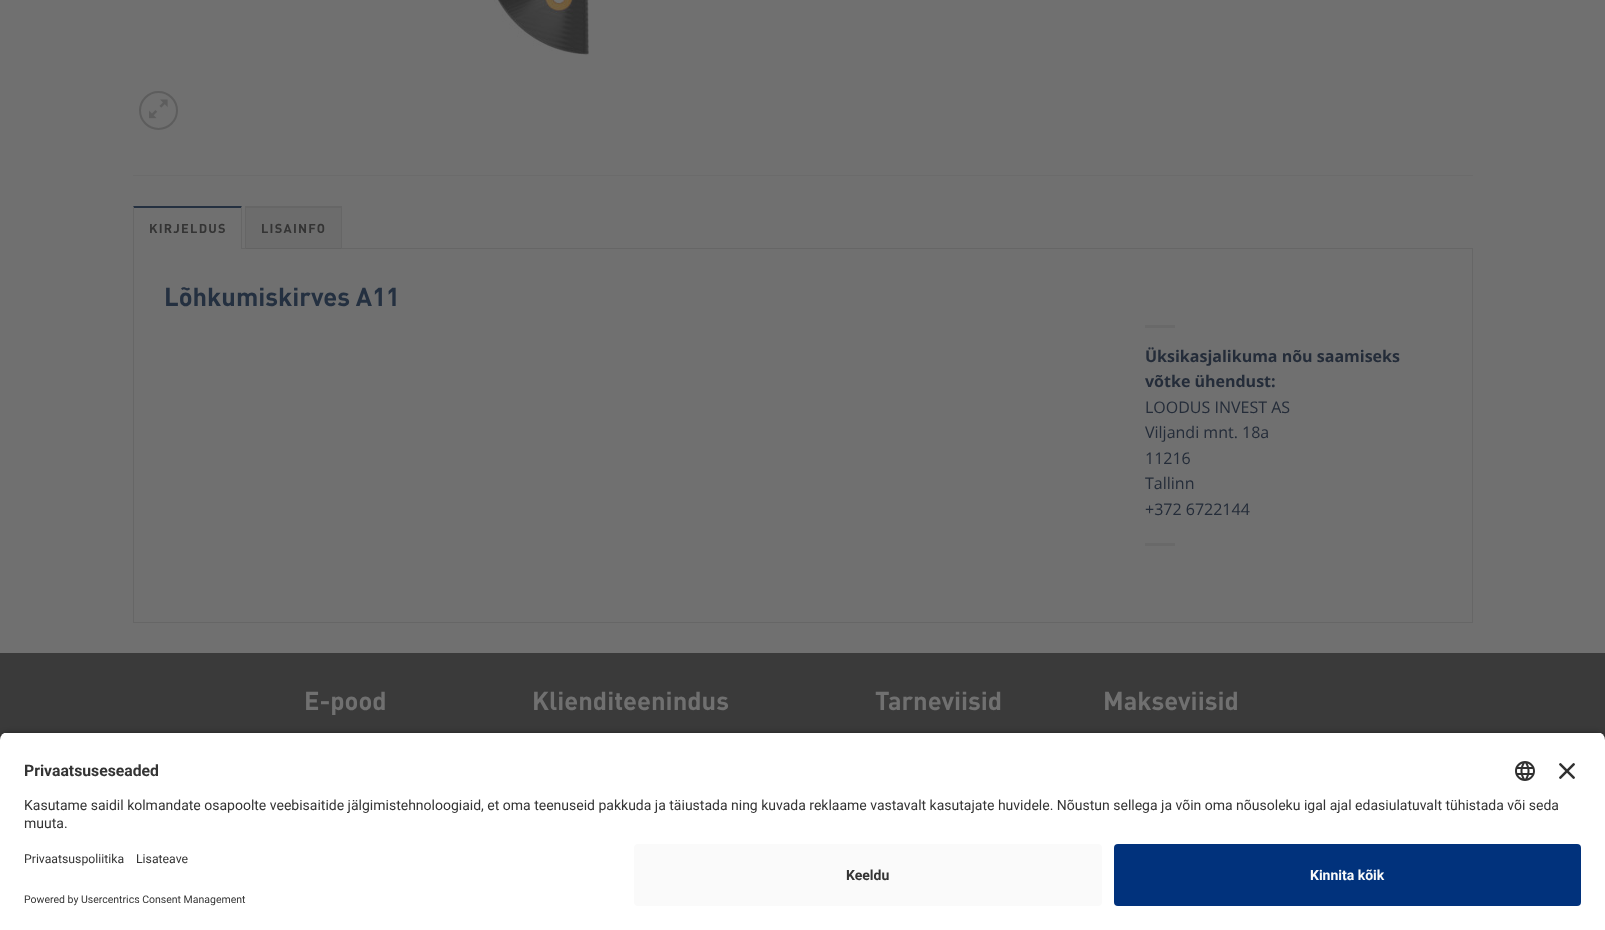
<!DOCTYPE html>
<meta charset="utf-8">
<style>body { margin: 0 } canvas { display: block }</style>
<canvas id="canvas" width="1605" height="930"></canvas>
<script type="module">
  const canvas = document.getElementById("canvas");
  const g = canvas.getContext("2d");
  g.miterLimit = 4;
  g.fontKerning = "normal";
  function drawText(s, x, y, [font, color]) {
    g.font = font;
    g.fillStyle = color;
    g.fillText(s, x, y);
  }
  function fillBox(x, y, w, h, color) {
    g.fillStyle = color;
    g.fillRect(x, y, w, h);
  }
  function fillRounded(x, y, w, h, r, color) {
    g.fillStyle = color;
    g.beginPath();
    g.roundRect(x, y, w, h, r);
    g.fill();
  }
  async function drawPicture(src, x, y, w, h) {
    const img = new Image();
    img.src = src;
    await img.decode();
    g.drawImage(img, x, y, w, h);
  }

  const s1 = ["bold 12.75px DIN", "#343434"];
  const s2 = ["bold 25.5px DIN", "#243040"];
  const s3 = ["bold 16px Open Sans", "#242C39"];
  const s4 = ["16px Open Sans", "#242C39"];
  const s5 = ["bold 25.5px DIN", "#707070"];
  const s6 = ["bold 15.75px Roboto", "#343434"];
  const s7 = ["14px Roboto", "#343434"];
  const s8 = ["12.25px Roboto", "#343434"];
  const s9 = ["10.5px Roboto", "#343434"];
  const s10 = ["bold 14px Roboto", "#343434"];
  const s11 = ["bold 14px Roboto", "#FAFAFA"];

  fillBox(0, 0, 1605, 930, "#707070");
  await drawPicture("pic1.png", 494, 0, 95, 56);
  g.beginPath();
  g.arc(158.5, 110.5, 18.5, 0, Math.PI * 2);
  g.strokeStyle = "#5D5D5D";
  g.lineWidth = 2;
  g.stroke();
  await drawPicture("pic2.png", 149, 99, 19, 20);
  fillBox(133, 175, 1340, 1, "#6B6B6B");
  g.strokeStyle = "#666666";
  g.lineWidth = 1;
  g.strokeRect(133.5, 248.5, 1339, 374);
  fillBox(133, 248, 109, 1, "#707070");
  g.fillStyle = "#243040";
  g.beginPath();
  g.moveTo(133, 206);
  g.lineTo(242, 206);
  g.lineTo(241, 208);
  g.lineTo(134, 208);
  g.closePath();
  g.fill();
  g.fillStyle = "#666666";
  g.beginPath();
  g.moveTo(242, 206);
  g.lineTo(242, 249);
  g.lineTo(241, 249);
  g.lineTo(241, 208);
  g.closePath();
  g.fill();
  g.beginPath();
  g.moveTo(133, 249);
  g.lineTo(133, 206);
  g.lineTo(134, 208);
  g.lineTo(134, 249);
  g.closePath();
  g.fill();
  g.letterSpacing = "1.25px";
  drawText("KIRJELDUS", 149, 233, s1);
  fillBox(246, 208, 95, 41, "rgba(36, 36, 36, 0.04)");
  fillBox(245, 206, 97, 2, "#666666");
  fillBox(341, 206, 1, 43, "#666666");
  fillBox(245, 206, 1, 43, "#666666");
  drawText("LISAINFO", 261, 233, s1);
  g.letterSpacing = "0px";
  drawText("Lõhkumiskirves A11", 164, 306, s2);
  fillBox(1145, 325, 30, 3, "#696969");
  drawText("Üksikasjalikuma nõu saamiseks", 1145, 362, s3);
  drawText("võtke ühendust:", 1145, 387, s3);
  drawText("LOODUS INVEST AS", 1145, 413, s4);
  drawText("Viljandi mnt. 18a", 1145, 438, s4);
  drawText("11216", 1145, 464, s4);
  drawText("Tallinn", 1145, 489, s4);
  drawText("+372 6722144", 1145, 515, s4);
  fillBox(1145, 543, 30, 3, "#696969");
  fillBox(0, 653, 1605, 87, "#3A3A3A");
  drawText("E-pood", 304, 710, s5);
  drawText("Klienditeenindus", 532, 710, s5);
  drawText("Tarneviisid", 875, 710, s5);
  drawText("Makseviisid", 1103, 710, s5);
  g.fillStyle = "rgba(0, 0, 0, 0.8)";
  g.filter = "blur(3.5px)";
  g.beginPath();
  g.roundRect(0, 735, 1605, 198, 8);
  g.fill();
  g.filter = "none";
  g.save();
  g.beginPath();
  g.roundRect(0, 732, 1605, 104, [8, 8, 0, 0]);
  g.clip();
  fillBox(0, 733, 1605, 103, "#FFFFFF");
  g.restore();
  drawText("Privaatsuseseaded", 24, 776, s6);
  await drawPicture("pic3.png", 1515, 761, 20, 20);
  await drawPicture("pic4.png", 1559, 763, 16, 16);
  drawText("Kasutame saidil kolmandate osapoolte veebisaitide jälgimistehnoloogiaid, et oma teenuseid pakkuda ja täiustada ning kuvada reklaame vastavalt kasutajate huvidele. Nõustun sellega ja võin oma nõusoleku igal ajal edasiulatuvalt tühistada või seda", 24, 810, s7);
  drawText("muuta.", 24, 828, s7);
  fillBox(0, 836, 1605, 94, "#FFFFFF");
  drawText("Privaatsuspoliitika", 24, 863, s8);
  drawText("Lisateave", 136, 863, s8);
  drawText("Powered by Usercentrics Consent Management", 24, 903, s9);
  fillRounded(634, 844, 468, 62, 4, "#FAFAFA");
  drawText("Keeldu", 846, 880, s10);
  fillRounded(1114, 844, 467, 62, 4, "#01327C");
  drawText("Kinnita kõik", 1310, 880, s11);
</script>
